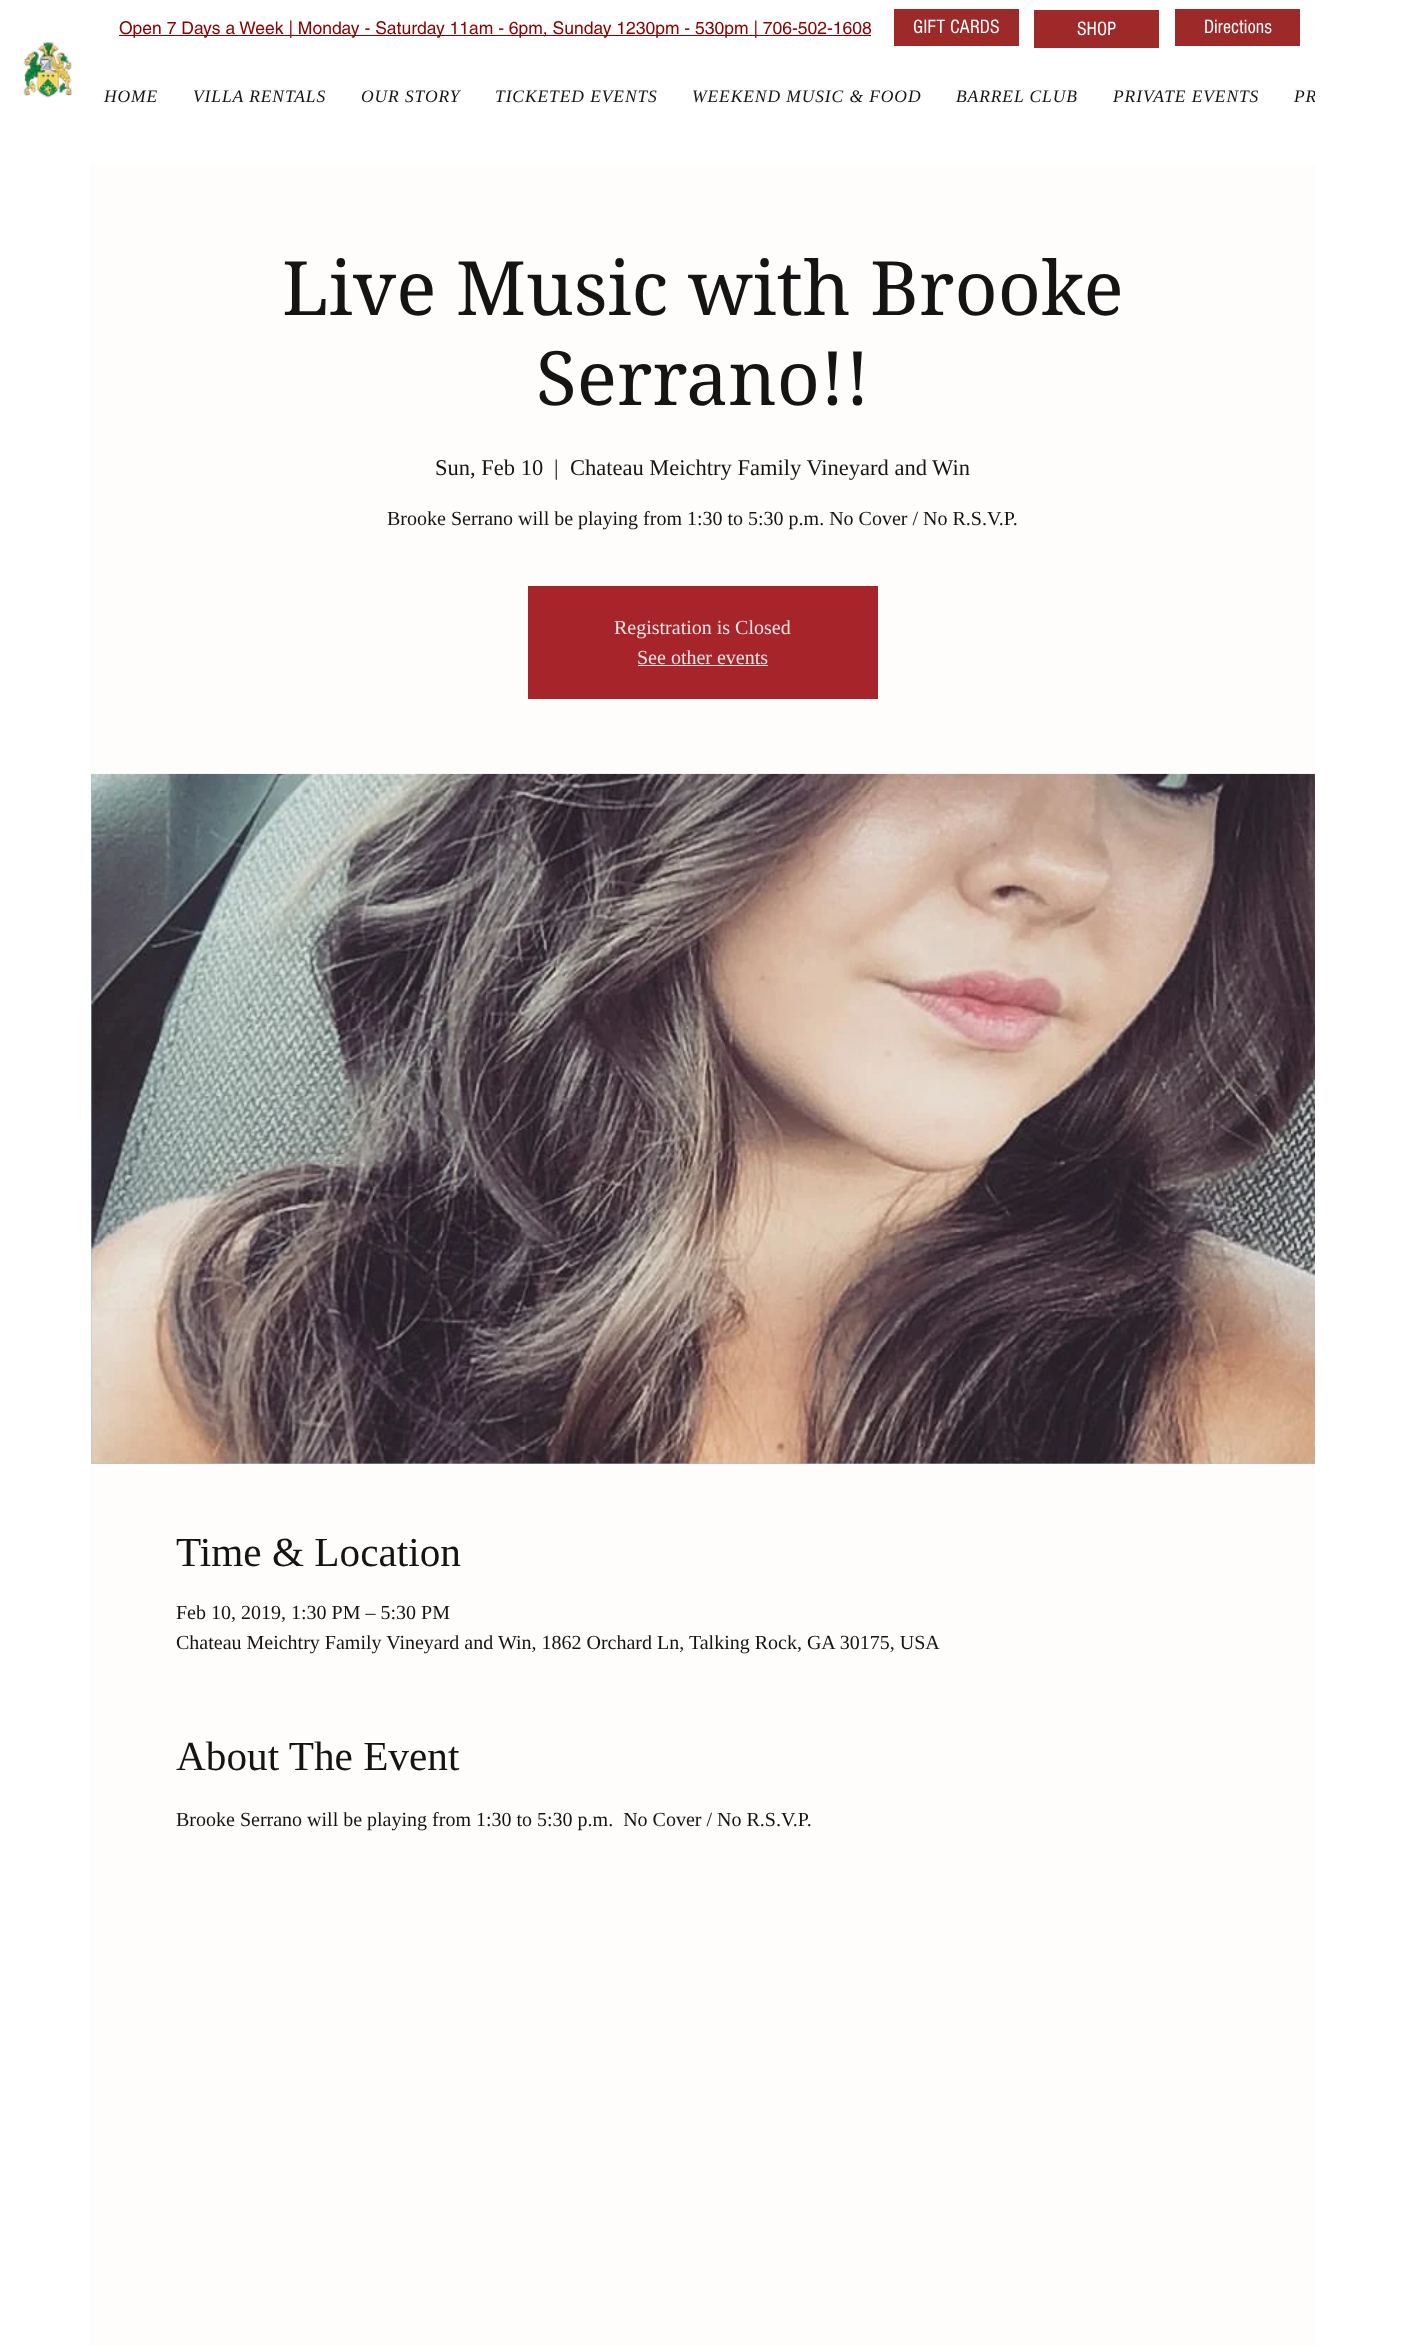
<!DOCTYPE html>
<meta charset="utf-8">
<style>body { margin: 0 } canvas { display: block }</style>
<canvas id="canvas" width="1405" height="2346"></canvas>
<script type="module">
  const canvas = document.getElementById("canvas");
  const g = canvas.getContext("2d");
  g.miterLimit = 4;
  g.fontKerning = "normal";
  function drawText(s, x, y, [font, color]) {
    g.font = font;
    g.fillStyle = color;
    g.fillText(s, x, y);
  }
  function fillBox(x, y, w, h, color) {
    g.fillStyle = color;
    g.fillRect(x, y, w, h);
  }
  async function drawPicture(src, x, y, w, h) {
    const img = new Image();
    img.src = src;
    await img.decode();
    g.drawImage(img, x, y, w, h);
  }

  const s1 = ["17.5px helvetica", "#8B0000"];
  const s2 = ["20px 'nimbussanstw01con'", "#FFFFFF"];
  const s3 = ["italic 17.5px Liberation Serif", "#141414"];
  const s4 = ["75px 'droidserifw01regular'", "#141414"];
  const s5 = ["22.5px Liberation Serif", "#141414"];
  const s6 = ["20px Liberation Serif", "#141414"];
  const s7 = ["20px Tinos", "#E4E4E4"];
  const s8 = ["41.25px Tinos", "#141414"];

  fillBox(0, 0, 1405, 2346, "#FFFFFF");
  fillBox(119, 35, 752, 1, "#8B0000");
  drawText("Open 7 Days a Week | Monday - Saturday 11am - 6pm, Sunday 1230pm - 530pm | 706-502-1608", 119, 34, s1);
  fillBox(894, 9, 125, 37, "#9E2929");
  drawText("GIFT CARDS", 913, 33, s2);
  fillBox(1034, 10, 125, 38, "#9E2929");
  drawText("SHOP", 1077, 35, s2);
  fillBox(1175, 9, 125, 37, "#9E2929");
  drawText("Directions", 1204, 33, s2);
  await drawPicture("pic1.png", 23, 42, 50, 56);
  g.letterSpacing = "0.9px";
  drawText("HOME", 104, 102, s3);
  drawText("VILLA RENTALS", 193, 102, s3);
  drawText("OUR STORY", 361, 102, s3);
  drawText("TICKETED EVENTS", 495, 102, s3);
  drawText("WEEKEND MUSIC & FOOD", 692, 102, s3);
  drawText("BARREL CLUB", 956, 102, s3);
  drawText("PRIVATE EVENTS", 1113, 102, s3);
  g.save();
  g.beginPath();
  g.rect(91, 71, 1224, 52);
  g.clip();
  drawText("PR", 1294, 102, s3);
  g.restore();
  fillBox(90, 163, 1225, 2183, "#FFFDFB");
  g.letterSpacing = "0px";
  drawText("Live Music with Brooke", 282, 315, s4);
  drawText("Serrano!!", 536, 405, s4);
  drawText("Sun, Feb 10", 435, 475, s5);
  drawText("|", 554, 475, s5);
  drawText("Chateau Meichtry Family Vineyard and Win", 570, 475, s5);
  drawText("Brooke Serrano will be playing from 1:30 to 5:30 p.m. No Cover / No R.S.V.P.", 387, 525, s6);
  fillBox(528, 586, 350, 113, "#A7252A");
  drawText("Registration is Closed", 614, 634, s7);
  drawText("See other events", 637, 664, s7);
  fillBox(638, 665, 130, 1, "#E4E4E4");
  fillBox(91, 774, 1224, 690, "#97CADD");
  await drawPicture("pic2.png", 91, 773, 1224, 691);
  drawText("Time & Location", 176, 1566, s8);
  drawText("Feb 10, 2019, 1:30 PM – 5:30 PM", 176, 1619, s6);
  drawText("Chateau Meichtry Family Vineyard and Win, 1862 Orchard Ln, Talking Rock, GA 30175, USA", 176, 1649, s6);
  drawText("About The Event", 176, 1770, s8);
  drawText("Brooke Serrano will be playing from 1:30 to 5:30 p.m.  No Cover / No R.S.V.P.", 176, 1826, s6);
</script>
